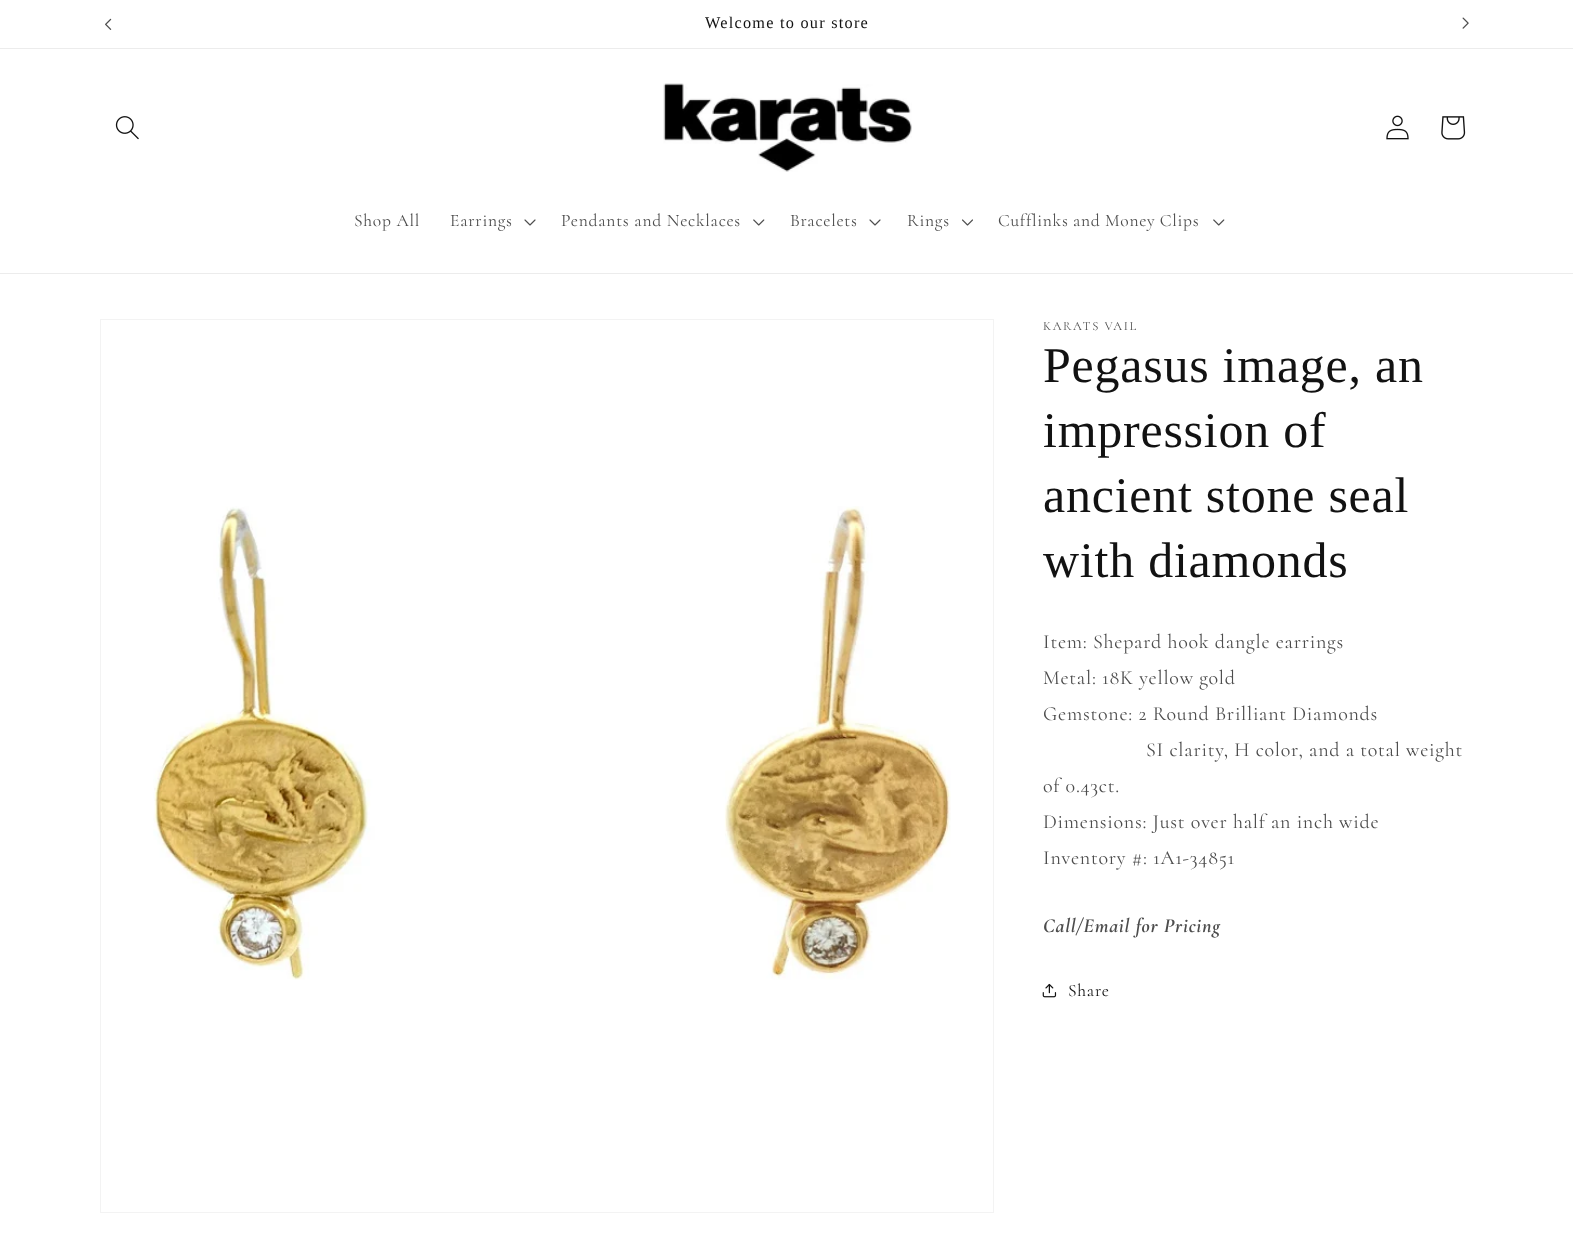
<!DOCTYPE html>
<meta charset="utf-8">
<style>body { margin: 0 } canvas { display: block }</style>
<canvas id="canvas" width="1573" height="1239"></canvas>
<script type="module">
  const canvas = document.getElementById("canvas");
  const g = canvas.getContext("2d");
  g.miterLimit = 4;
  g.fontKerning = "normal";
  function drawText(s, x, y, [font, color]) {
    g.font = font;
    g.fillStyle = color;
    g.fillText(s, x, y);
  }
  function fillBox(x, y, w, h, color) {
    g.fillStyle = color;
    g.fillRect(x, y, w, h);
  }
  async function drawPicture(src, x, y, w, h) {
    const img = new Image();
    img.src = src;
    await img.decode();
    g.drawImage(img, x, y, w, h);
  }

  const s1 = ["16.25px Liberation Serif", "#121212"];
  const s2 = ["17.5px Cormorant", "#4D4D4D"];
  const s3 = ["12.5px Cormorant", "#4D4D4D"];
  const s4 = ["50px Liberation Serif", "#121212"];
  const s5 = ["20px Cormorant", "#4D4D4D"];
  const s6 = ["italic bold 20px Cormorant", "#4D4D4D"];
  const s7 = ["17.5px Cormorant", "#121212"];

  fillBox(0, 0, 1573, 1239, "#FFFFFF");
  fillBox(0, 48, 1573, 1, "#ECECEC");
  await drawPicture("pic1.png", 105, 18, 7, 12);
  g.letterSpacing = "1.25px";
  drawText("Welcome to our store", 705, 28, s1);
  await drawPicture("pic2.png", 1462, 17, 7, 12);
  fillBox(0, 273, 1573, 1, "#ECECEC");
  await drawPicture("pic3.png", 115, 116, 24, 24);
  await drawPicture("pic4.png", 663, 83, 249, 89);
  await drawPicture("pic5.png", 1386, 115, 23, 25);
  await drawPicture("pic6.png", 1441, 116, 25, 24);
  g.letterSpacing = "0.75px";
  drawText("Shop All", 354, 226, s2);
  drawText("Earrings", 450, 226, s2);
  await drawPicture("pic7.png", 524, 219, 12, 7);
  drawText("Pendants and Necklaces", 561, 226, s2);
  await drawPicture("pic8.png", 753, 219, 12, 7);
  drawText("Bracelets", 790, 226, s2);
  await drawPicture("pic7.png", 869, 219, 12, 7);
  drawText("Rings", 907, 226, s2);
  await drawPicture("pic9.png", 962, 219, 11, 7);
  g.wordSpacing = "-0.5px";
  drawText("Cufflinks and Money Clips", 998, 226, s2);
  await drawPicture("pic8.png", 1213, 219, 12, 7);
  g.strokeStyle = "#F3F3F3";
  g.strokeRect(100.5, 319.5, 893, 893);
  await drawPicture("pic10.png", 153, 506, 798, 474);
  g.letterSpacing = "1.6px";
  g.wordSpacing = "0px";
  drawText("KARATS VAIL", 1043, 330, s3);
  g.letterSpacing = "0.75px";
  drawText("Pegasus image, an", 1043, 382, s4);
  drawText("impression of", 1043, 447, s4);
  drawText("ancient stone seal", 1043, 512, s4);
  drawText("with diamonds", 1043, 577, s4);
  drawText("Item: Shepard hook dangle earrings", 1043, 648, s5);
  drawText("Metal: 18K yellow gold", 1043, 684, s5);
  drawText("Gemstone: 2 Round Brilliant Diamonds", 1043, 720, s5);
  drawText("SI clarity, H color, and a total weight", 1146, 756, s5);
  drawText("of 0.43ct.", 1043, 792, s5);
  drawText("Dimensions: Just over half an inch wide", 1043, 828, s5);
  drawText("Inventory #: 1A1-34851", 1043, 864, s5);
  drawText("Call/Email for Pricing", 1043, 932, s6);
  await drawPicture("pic11.png", 1042, 983, 15, 15);
  drawText("Share", 1068, 996, s7);
</script>
